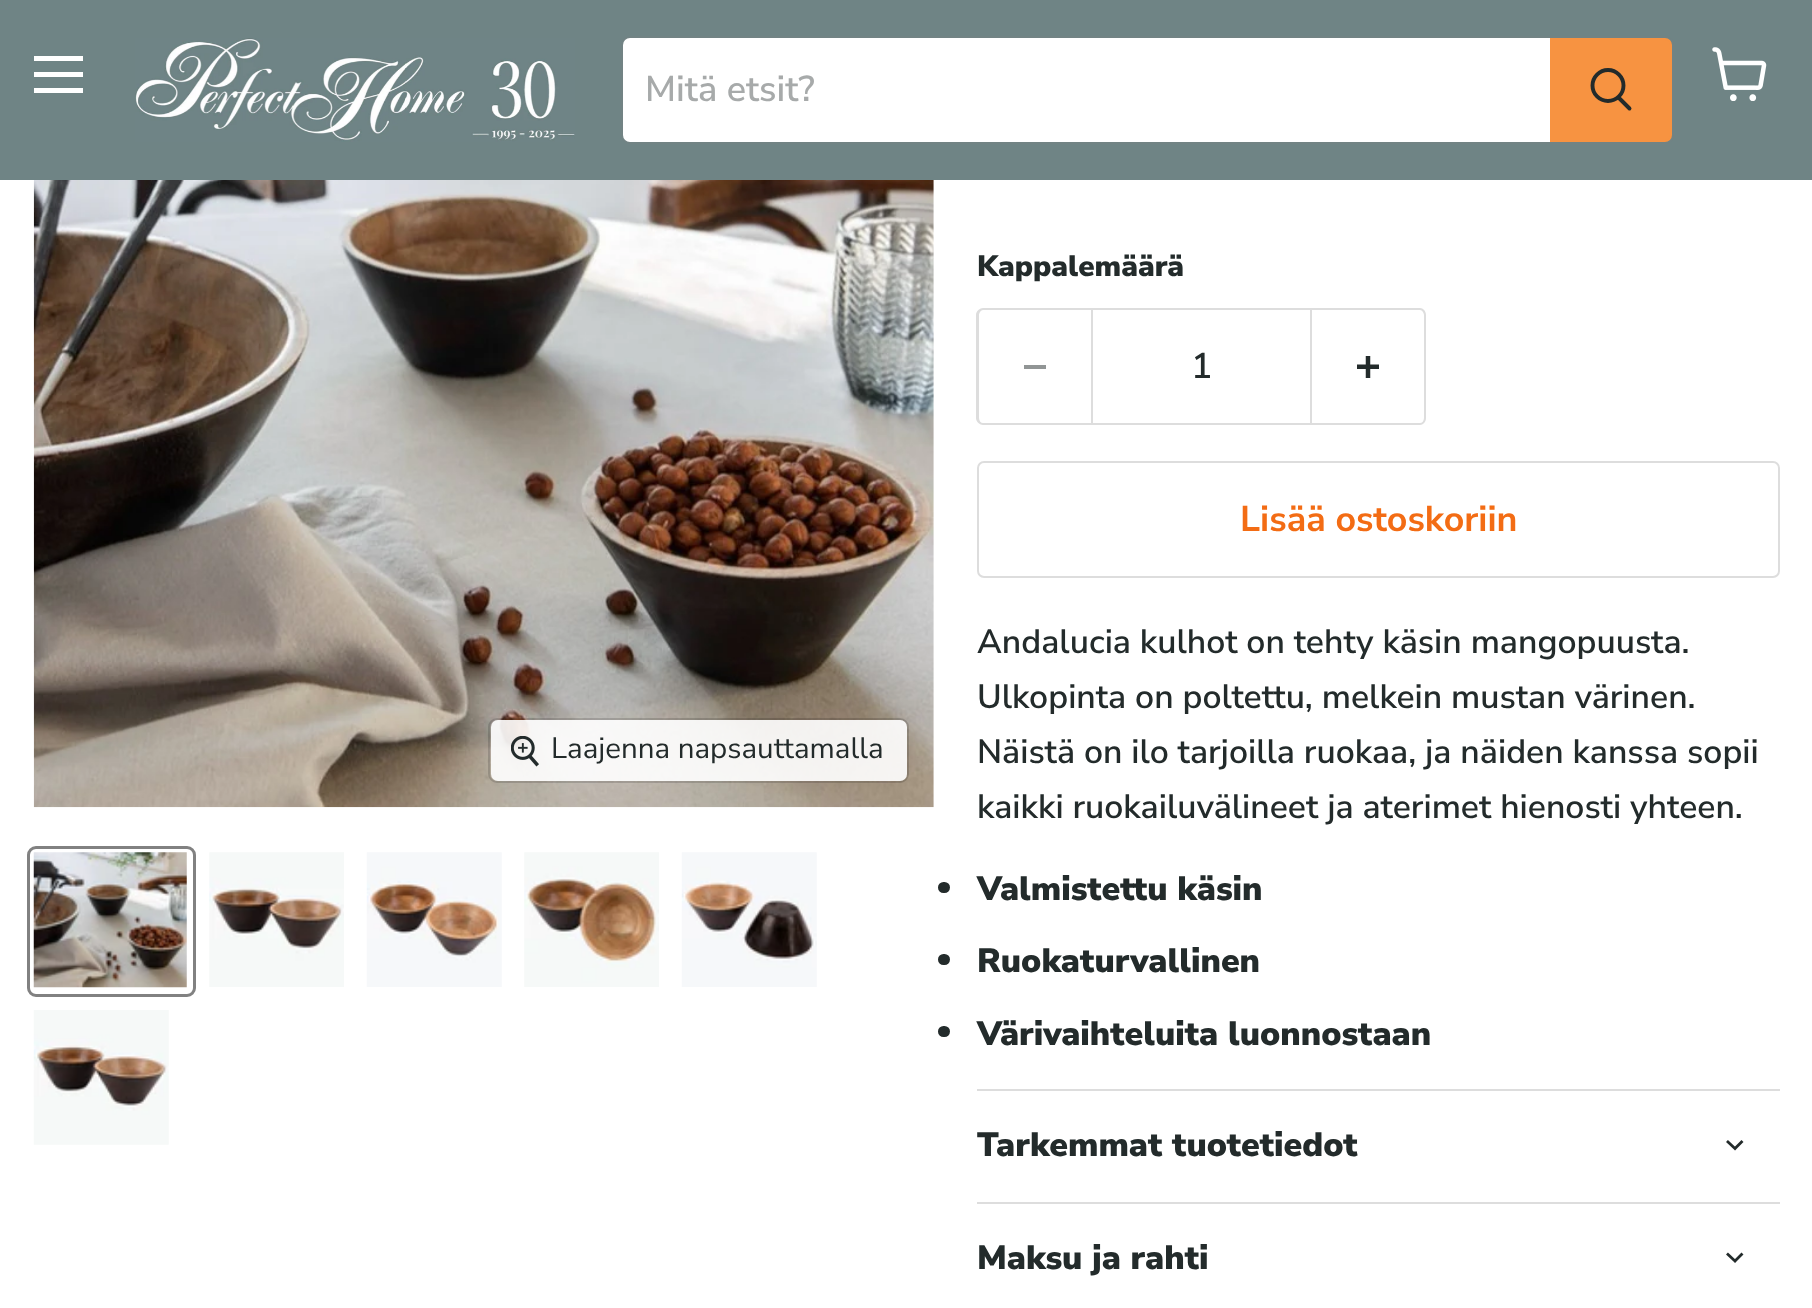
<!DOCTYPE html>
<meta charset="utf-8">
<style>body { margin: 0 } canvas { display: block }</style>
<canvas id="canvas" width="1812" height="1308"></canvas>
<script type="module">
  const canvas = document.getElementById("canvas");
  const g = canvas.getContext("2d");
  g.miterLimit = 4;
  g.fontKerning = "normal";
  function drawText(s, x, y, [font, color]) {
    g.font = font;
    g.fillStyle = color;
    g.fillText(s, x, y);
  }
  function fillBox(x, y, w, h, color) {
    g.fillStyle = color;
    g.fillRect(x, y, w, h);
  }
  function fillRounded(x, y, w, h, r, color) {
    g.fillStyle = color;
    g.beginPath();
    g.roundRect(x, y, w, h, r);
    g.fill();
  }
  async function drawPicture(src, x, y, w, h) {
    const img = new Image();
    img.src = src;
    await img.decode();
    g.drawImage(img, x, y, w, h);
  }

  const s1 = ["600 36px Nunito Sans", "#A7AAAA"];
  const s2 = ["200 29.5px Nunito Sans", "#232B2B"];
  const s3 = ["900 29.5px Nunito Sans", "#232B2B"];
  const s4 = ["600 35.75px Nunito Sans", "#232B2B"];
  const s5 = ["bold 35.75px Nunito Sans", "#F36C14"];
  const s6 = ["600 33.75px Nunito Sans", "#232B2B"];
  const s7 = ["900 33.75px Nunito Sans", "#232B2B"];

  fillBox(0, 0, 1812, 1308, "#FFFFFF");
  fillBox(0, 0, 1812, 180, "#6F8485");
  fillBox(34, 56, 49, 5, "#FFFFFF");
  fillBox(34, 72, 49, 5, "#FFFFFF");
  fillBox(34, 88, 49, 5, "#FFFFFF");
  await drawPicture("pic1.png", 135, 38, 440, 104);
  g.beginPath();
  g.roundRect(622, 37, 1051, 106, 8);
  g.strokeStyle = "#728384";
  g.lineWidth = 2;
  g.stroke();
  g.beginPath();
  g.roundRect(623, 38, 927, 104, [7, 0, 0, 7]);
  g.fill();
  drawText("Mitä etsit?", 645, 101, s1);
  g.fillStyle = "#F79341";
  g.beginPath();
  g.roundRect(1551, 39, 120, 102, [0, 6, 6, 0]);
  g.fill();
  g.strokeStyle = "#F79341";
  g.stroke();
  g.beginPath();
  g.moveTo(1629.5, 108.5);
  g.lineTo(1619, 98);
  g.strokeStyle = "#232B2B";
  g.lineWidth = 3.9;
  g.lineCap = "round";
  g.stroke();
  g.beginPath();
  g.arc(1608, 85.5, 15.5, 0, Math.PI * 2);
  g.stroke();
  await drawPicture("pic2.png", 1712, 47, 55, 54);
  await drawPicture("pic3.png", 33, 180, 901, 628);
  g.beginPath();
  g.roundRect(489, 719, 419, 63, 8);
  g.strokeStyle = "rgba(0, 0, 0, 0.15)";
  g.lineWidth = 2;
  g.stroke();
  fillRounded(491, 720, 416, 61, 7, "rgba(255, 255, 255, 0.9)");
  await drawPicture("pic4.png", 511, 736, 28, 31);
  drawText("Laajenna napsauttamalla", 551, 758, s2);
  g.beginPath();
  g.roundRect(28.5, 847.5, 166, 148, 7.5);
  g.strokeStyle = "#818181";
  g.lineWidth = 3;
  g.stroke();
  await drawPicture("pic5.png", 33, 852, 154, 136);
  await drawPicture("pic6.png", 209, 852, 135, 135);
  await drawPicture("pic7.png", 366, 852, 136, 135);
  await drawPicture("pic8.png", 524, 852, 135, 135);
  await drawPicture("pic9.png", 681, 852, 136, 135);
  await drawPicture("pic10.png", 33, 1010, 136, 135);
  drawText("Kappalemäärä", 977, 276, s3);
  g.fillStyle = "#DDDDDD";
  g.beginPath();
  g.moveTo(983, 308);
  g.lineTo(1091, 308);
  g.lineTo(1091, 425);
  g.lineTo(983, 425);
  g.bezierCurveTo(980, 425, 976, 422, 976, 418);
  g.lineTo(976, 315);
  g.bezierCurveTo(976, 311, 980, 308, 983, 308);
  g.closePath();
  g.moveTo(983, 310);
  g.lineTo(1091, 310);
  g.lineTo(1091, 423);
  g.lineTo(983, 423);
  g.bezierCurveTo(981, 423, 979, 421, 979, 418);
  g.lineTo(979, 315);
  g.bezierCurveTo(979, 313, 981, 310, 983, 310);
  g.closePath();
  g.fill("evenodd");
  fillBox(1024, 365, 22, 4, "#919595");
  g.strokeStyle = "#DDDDDD";
  g.lineWidth = 2;
  g.strokeRect(1092, 309, 219, 115);
  drawText("1", 1191, 378, s4);
  g.fillStyle = "#DDDDDD";
  g.beginPath();
  g.moveTo(1312, 308);
  g.lineTo(1420, 308);
  g.bezierCurveTo(1423, 308, 1426, 311, 1426, 315);
  g.lineTo(1426, 418);
  g.bezierCurveTo(1426, 422, 1423, 425, 1420, 425);
  g.lineTo(1312, 425);
  g.closePath();
  g.moveTo(1312, 310);
  g.lineTo(1420, 310);
  g.bezierCurveTo(1422, 310, 1424, 313, 1424, 315);
  g.lineTo(1424, 418);
  g.bezierCurveTo(1424, 421, 1422, 423, 1420, 423);
  g.lineTo(1312, 423);
  g.closePath();
  g.fill("evenodd");
  await drawPicture("pic11.png", 1357, 356, 22, 22);
  g.beginPath();
  g.roundRect(978, 462, 801, 115, 6);
  g.stroke();
  drawText("Lisää ostoskoriin", 1240, 531, s5);
  drawText("Andalucia kulhot on tehty käsin mangopuusta.", 977, 653, s6);
  drawText("Ulkopinta on poltettu, melkein mustan värinen.", 977, 708, s6);
  drawText("Näistä on ilo tarjoilla ruokaa, ja näiden kanssa sopii", 977, 763, s6);
  drawText("kaikki ruokailuvälineet ja aterimet hienosti yhteen.", 977, 818, s6);
  fillRounded(938, 882, 12, 11, 5.5, "#232B2B");
  drawText("Valmistettu käsin", 977, 900, s7);
  fillRounded(938, 954, 12, 11, 5.5, "#232B2B");
  drawText("Ruokaturvallinen", 977, 972, s7);
  fillRounded(938, 1026, 12, 11, 5.5, "#232B2B");
  drawText("Värivaihteluita luonnostaan", 977, 1045, s7);
  fillBox(977, 1089, 803, 2, "#DDDDDD");
  fillBox(977, 1202, 803, 2, "#DDDDDD");
  drawText("Tarkemmat tuotetiedot", 977, 1156, s7);
  g.beginPath();
  g.moveTo(1735, 1148.5);
  g.lineTo(1741.5, 1142);
  g.moveTo(1735, 1148.5);
  g.lineTo(1728, 1142);
  g.strokeStyle = "#232B2B";
  g.lineWidth = 2.8;
  g.lineCap = "square";
  g.stroke();
  drawText("Maksu ja rahti", 977, 1269, s7);
  g.beginPath();
  g.moveTo(1735, 1261);
  g.lineTo(1741.5, 1254.5);
  g.moveTo(1735, 1261);
  g.lineTo(1728, 1254.5);
  g.stroke();
</script>
